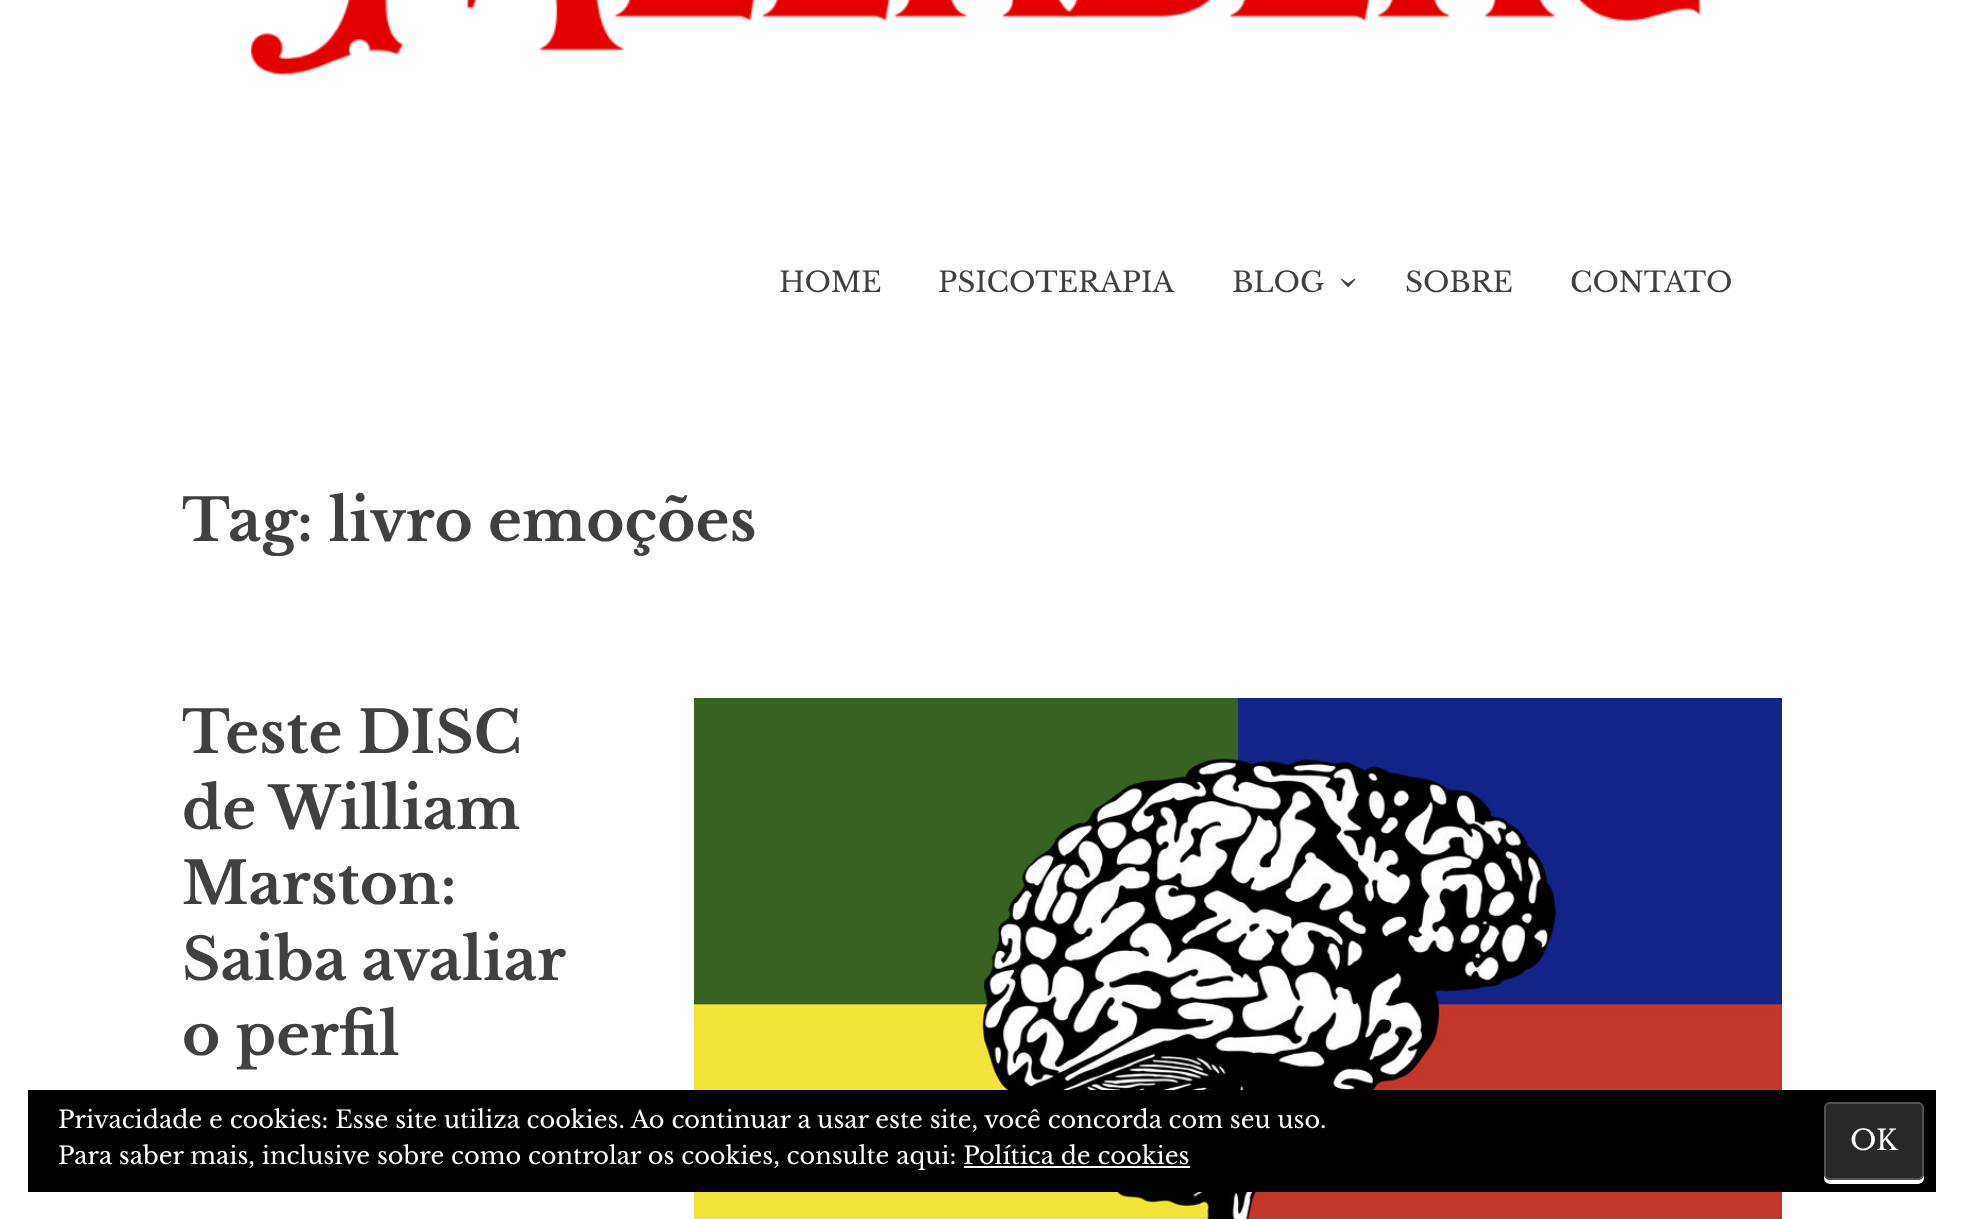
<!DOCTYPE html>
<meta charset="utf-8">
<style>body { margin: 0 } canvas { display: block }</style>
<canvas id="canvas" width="1964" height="1219"></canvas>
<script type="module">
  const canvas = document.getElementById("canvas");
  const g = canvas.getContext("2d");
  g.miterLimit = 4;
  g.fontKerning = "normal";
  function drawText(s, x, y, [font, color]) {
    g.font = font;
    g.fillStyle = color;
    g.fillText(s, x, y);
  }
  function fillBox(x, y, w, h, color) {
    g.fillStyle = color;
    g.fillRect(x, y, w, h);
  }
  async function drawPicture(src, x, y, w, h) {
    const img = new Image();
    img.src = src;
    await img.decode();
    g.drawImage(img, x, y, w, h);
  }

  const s1 = ["28px Libre Baskerville", "#404040"];
  const s2 = ["bold 58px Libre Baskerville", "#404040"];
  const s3 = ["24px Libre Baskerville", "#FFFFFF"];
  const s4 = ["28px Libre Baskerville", "#FFFFFF"];

  fillBox(0, 0, 1964, 1219, "#FFFFFF");
  await drawPicture("pic1.png", 250, 0, 1452, 76);
  drawText("HOME", 779, 292, s1);
  drawText("PSICOTERAPIA", 938, 292, s1);
  drawText("BLOG", 1232, 292, s1);
  g.font = "46px Libre Baskerville";
  g.save();
  g.translate(1336, 275);
  g.rotate(90 * Math.PI / 180);
  g.fillText("›", 0, 0);
  g.restore();
  drawText("SOBRE", 1405, 292, s1);
  drawText("CONTATO", 1570, 292, s1);
  drawText("Tag: livro emoções", 182, 541, s2);
  drawText("Teste DISC", 182, 753, s2);
  drawText("de William", 182, 829, s2);
  drawText("Marston:", 182, 904, s2);
  g.wordSpacing = "-1px";
  drawText("Saiba avaliar", 182, 980, s2);
  g.wordSpacing = "0px";
  drawText("o perfil", 182, 1055, s2);
  await drawPicture("pic2.png", 694, 698, 1088, 521);
  fillBox(28, 1090, 1908, 102, "#000000");
  drawText("Privacidade e cookies: Esse site utiliza cookies. Ao continuar a usar este site, você concorda com seu uso.", 58, 1128, s3);
  g.beginPath();
  g.moveTo(1824, 1174);
  g.lineTo(1824, 1178);
  g.bezierCurveTo(1824, 1181, 1827, 1184, 1830, 1184);
  g.lineTo(1918, 1184);
  g.bezierCurveTo(1921, 1184, 1924, 1181, 1924, 1178);
  g.lineTo(1924, 1174);
  g.bezierCurveTo(1924, 1177, 1921, 1180, 1918, 1180);
  g.lineTo(1830, 1180);
  g.bezierCurveTo(1827, 1180, 1824, 1177, 1824, 1174);
  g.closePath();
  g.fill();
  g.fillStyle = "#282828";
  g.beginPath();
  g.roundRect(1825, 1103, 98, 76, 5);
  g.fill();
  g.strokeStyle = "#535353";
  g.lineWidth = 2;
  g.stroke();
  drawText("OK", 1850, 1150, s4);
  drawText("Para saber mais, inclusive sobre como controlar os cookies, consulte aqui: Política de cookies", 58, 1164, s3);
  fillBox(964, 1166, 226, 2, "#FFFFFF");
</script>
